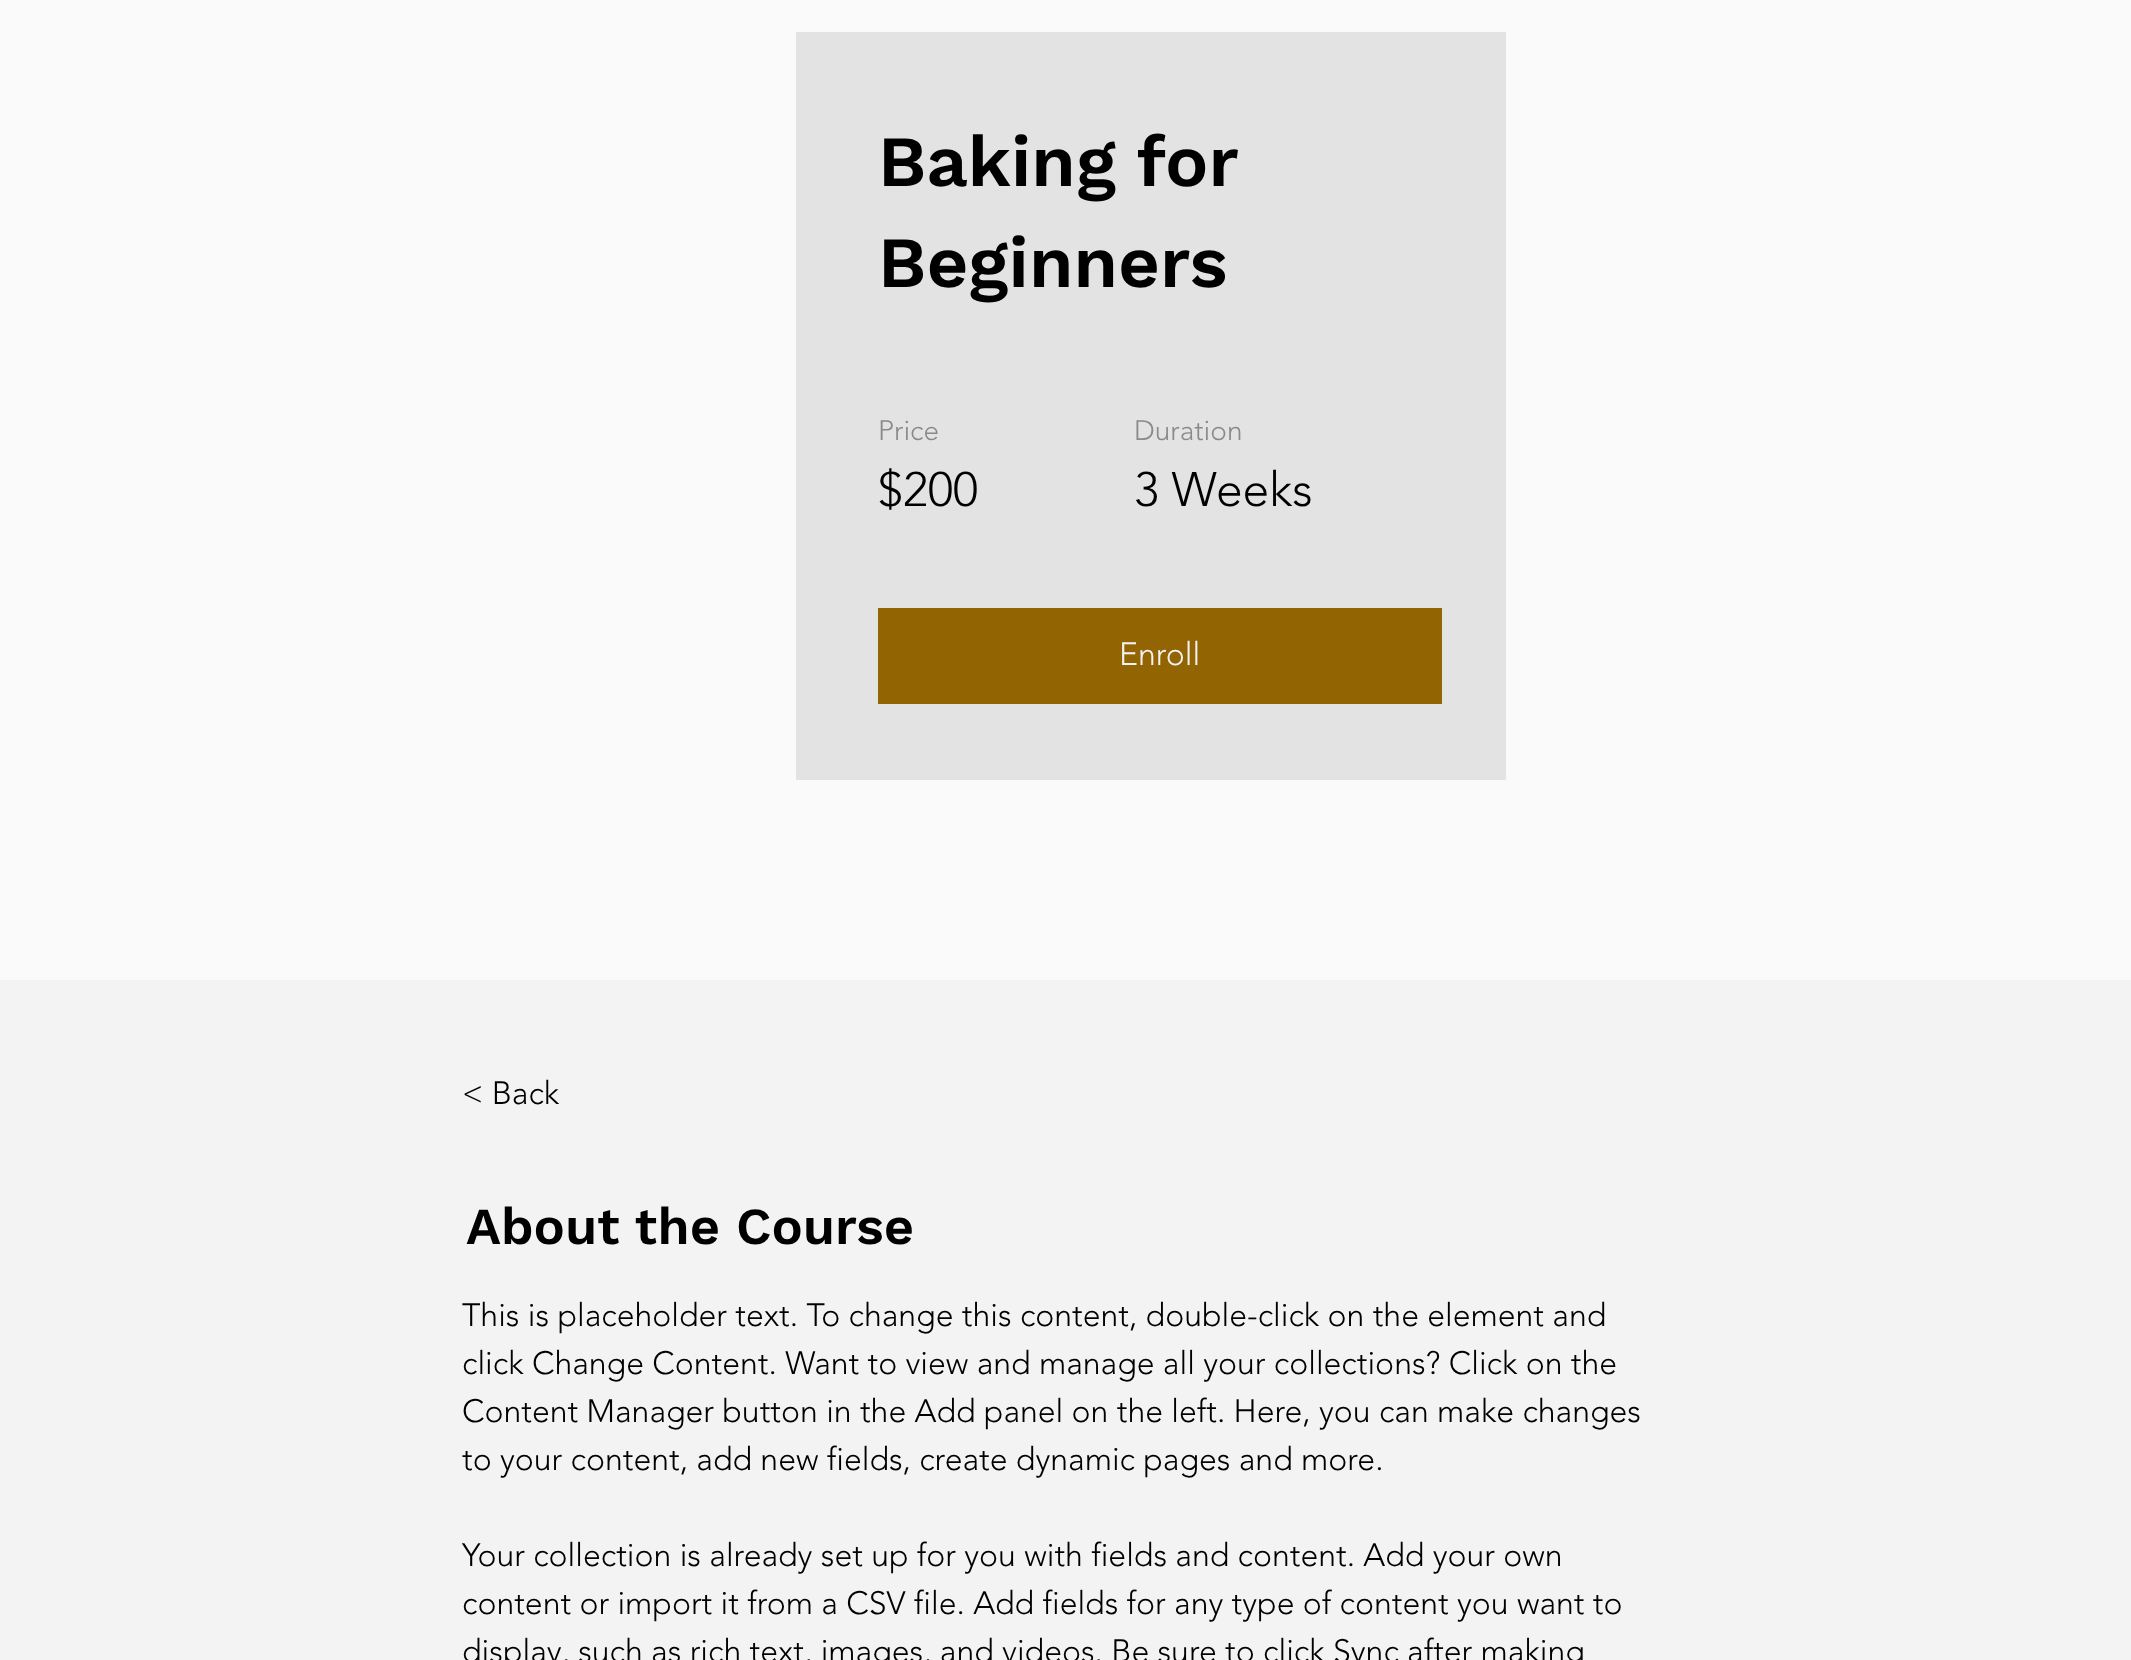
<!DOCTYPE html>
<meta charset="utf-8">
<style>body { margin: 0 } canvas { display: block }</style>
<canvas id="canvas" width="2131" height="1660"></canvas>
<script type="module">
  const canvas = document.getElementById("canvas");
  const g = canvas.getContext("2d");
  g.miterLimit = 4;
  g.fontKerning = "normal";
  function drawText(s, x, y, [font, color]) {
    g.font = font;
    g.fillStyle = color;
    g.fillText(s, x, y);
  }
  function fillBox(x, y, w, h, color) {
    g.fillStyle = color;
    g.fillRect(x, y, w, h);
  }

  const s1 = ["600 72px Work Sans", "#000000"];
  const s2 = ["300 28px 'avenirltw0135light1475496'", "#8A8A8A"];
  const s3 = ["300 48px 'avenirltw0135light1475496'", "#000000"];
  const s4 = ["300 32px 'avenirltw0135light1475496'", "#F3F3F3"];
  const s5 = ["300 32px 'avenirltw0135light1475496'", "#000000"];
  const s6 = ["600 52px Work Sans", "#000000"];

  fillBox(0, 0, 2131, 1660, "#F3F3F3");
  fillBox(0, 0, 2131, 980, "#FAFAFA");
  fillBox(796, 32, 710, 748, "#E3E3E3");
  g.wordSpacing = "-1px";
  drawText("Baking for", 878, 186, s1);
  g.wordSpacing = "0px";
  drawText("Beginners", 878, 287, s1);
  drawText("Price", 878, 440, s2);
  drawText("Duration", 1134, 440, s2);
  drawText("$200", 878, 506, s3);
  drawText("3 Weeks", 1134, 506, s3);
  fillBox(878, 608, 564, 96, "#926402");
  drawText("Enroll", 1119, 665, s4);
  drawText("< Back", 462, 1104, s5);
  drawText("About the Course", 466, 1244, s6);
  drawText("This is placeholder text. To change this content, double-click on the element and", 462, 1326, s5);
  drawText("click Change Content. Want to view and manage all your collections? Click on the", 462, 1374, s5);
  drawText("Content Manager button in the Add panel on the left. Here, you can make changes", 462, 1422, s5);
  drawText("to your content, add new fields, create dynamic pages and more.", 462, 1470, s5);
  drawText("Your collection is already set up for you with fields and content. Add your own", 462, 1566, s5);
  drawText("content or import it from a CSV file. Add fields for any type of content you want to", 462, 1614, s5);
  drawText("display, such as rich text, images, and videos. Be sure to click Sync after making", 462, 1662, s5);
</script>
